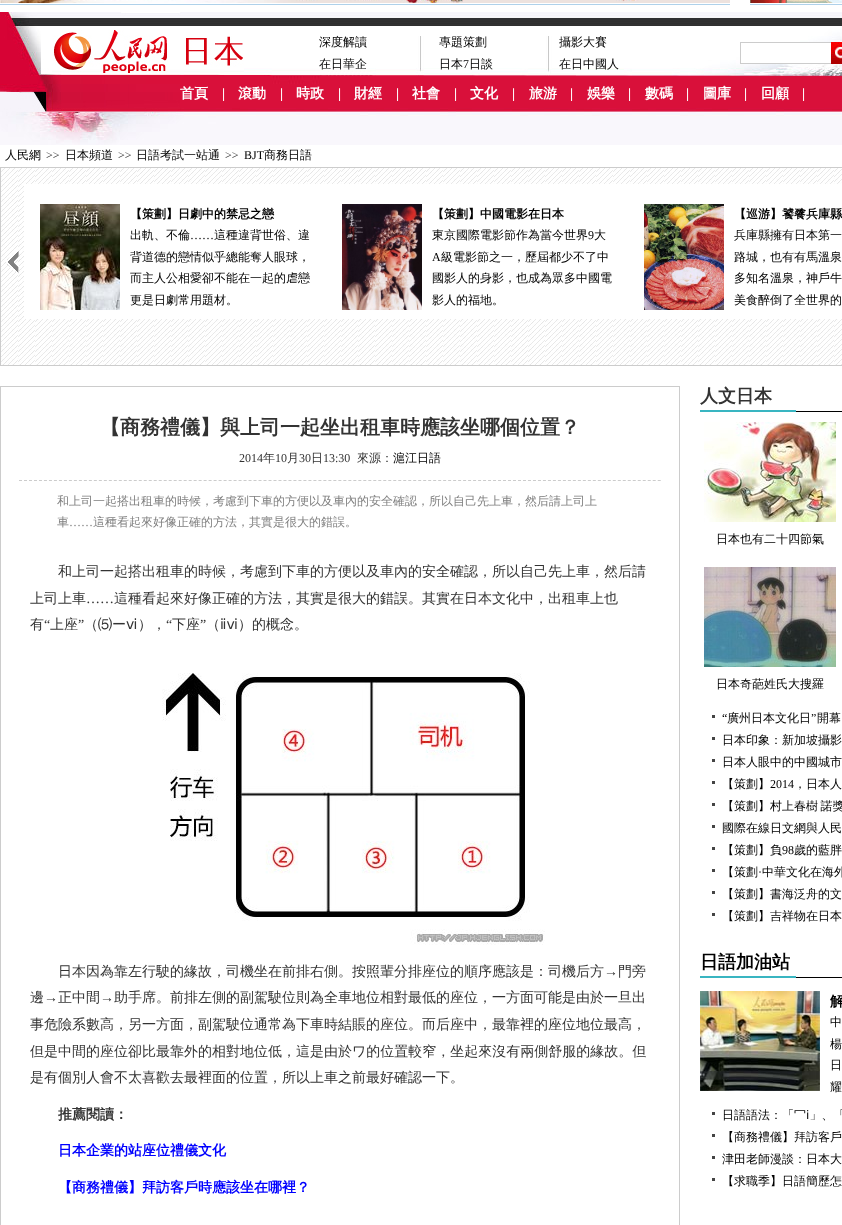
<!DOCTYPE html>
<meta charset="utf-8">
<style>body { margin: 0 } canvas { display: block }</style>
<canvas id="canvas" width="842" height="1225"></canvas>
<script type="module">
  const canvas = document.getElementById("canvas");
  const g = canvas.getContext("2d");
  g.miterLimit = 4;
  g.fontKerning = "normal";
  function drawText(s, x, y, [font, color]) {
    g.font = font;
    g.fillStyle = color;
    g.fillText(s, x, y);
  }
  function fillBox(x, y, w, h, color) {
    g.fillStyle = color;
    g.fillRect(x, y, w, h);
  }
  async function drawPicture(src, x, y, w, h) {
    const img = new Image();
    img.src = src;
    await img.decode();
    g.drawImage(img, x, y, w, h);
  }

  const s1 = ["500 12px WenQuanYi Zen Hei", "#000000"];
  const s2 = ["12px Liberation Serif", "#000000"];
  const s3 = ["bold 14px WenQuanYi Zen Hei", "#FFFFFF"];
  const s4 = ["bold 14px Liberation Serif", "#FFFFFF"];
  const s5 = ["12px Liberation Serif", "#333333"];
  const s6 = ["bold 12px WenQuanYi Zen Hei", "#000000"];
  const s7 = ["bold 20px WenQuanYi Zen Hei", "#333333"];
  const s8 = ["500 12px WenQuanYi Zen Hei", "#333333"];
  const s9 = ["500 12px WenQuanYi Zen Hei", "#7F7F7F"];
  const s10 = ["12px Liberation Serif", "#7F7F7F"];
  const s11 = ["500 14px WenQuanYi Zen Hei", "#333333"];
  const s12 = ["14px Liberation Serif", "#333333"];
  const s13 = ["14px DejaVu Sans", "#333333"];
  const s14 = ["bold 14px WenQuanYi Zen Hei", "#333333"];
  const s15 = ["bold 14px WenQuanYi Zen Hei", "#0000FF"];
  const s16 = ["bold 18px WenQuanYi Zen Hei", "#333333"];
  const s17 = ["bold 18px WenQuanYi Zen Hei", "#000000"];
  const s18 = ["bold 14px WenQuanYi Zen Hei", "#000000"];
  const s19 = ["12px DejaVu Sans", "#000000"];

  fillBox(0, 0, 842, 1225, "#FFFFFF");
  await drawPicture("pic1.png", 0, 0, 730, 3);
  fillBox(0, 4, 730, 1, "#AFD1EA");
  await drawPicture("pic2.png", 750, 0, 92, 3);
  fillBox(750, 4, 92, 1, "#AFD1EA");
  await drawPicture("pic3.png", 0, 12, 842, 133);
  await drawPicture("pic4.png", 52, 30, 116, 43);
  await drawPicture("pic5.png", 168, 36, 76, 37);
  drawText("深度解讀", 319, 46, s1);
  drawText("在日華企", 319, 68, s1);
  drawText("專題策劃", 439, 46, s1);
  drawText("日本", 439, 68, s1);
  drawText("7", 463, 68, s2);
  drawText("日談", 469, 68, s1);
  drawText("攝影大賽", 559, 46, s1);
  drawText("在日中國人", 559, 68, s1);
  fillBox(741, 43, 90, 20, "#FFFFFF");
  fillBox(740, 42, 91, 1, "#CCCCCC");
  fillBox(740, 63, 91, 1, "#CCCCCC");
  fillBox(740, 42, 1, 22, "#CCCCCC");
  await drawPicture("pic6.png", 831, 42, 11, 22);
  drawText("首頁", 180, 98, s3);
  drawText("|", 222, 98, s4);
  drawText("滾動", 238, 98, s3);
  drawText("|", 280, 98, s4);
  drawText("時政", 296, 98, s3);
  drawText("|", 338, 98, s4);
  drawText("財經", 354, 98, s3);
  drawText("|", 396, 98, s4);
  drawText("社會", 412, 98, s3);
  drawText("|", 454, 98, s4);
  drawText("文化", 470, 98, s3);
  drawText("|", 512, 98, s4);
  drawText("旅游", 529, 98, s3);
  drawText("|", 570, 98, s4);
  drawText("娛樂", 587, 98, s3);
  drawText("|", 628, 98, s4);
  drawText("數碼", 645, 98, s3);
  drawText("|", 686, 98, s4);
  drawText("圖庫", 703, 98, s3);
  drawText("|", 744, 98, s4);
  drawText("回顧", 761, 98, s3);
  drawText("|", 802, 98, s4);
  drawText("人民網", 5, 159, s1);
  drawText(">>", 46, 159, s5);
  drawText("日本頻道", 65, 159, s1);
  drawText(">>", 118, 159, s5);
  drawText("日語考試一站通", 136, 159, s1);
  drawText(">>", 225, 159, s5);
  drawText("BJT", 244, 159, s2);
  drawText("商務日語", 264, 159, s1);
  await drawPicture("pic7.png", 1, 168, 841, 197);
  g.strokeStyle = "#CCCCCC";
  g.strokeRect(0.5, 167.5, 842, 198);
  await drawPicture("pic8.png", 6, 250, 13, 24);
  fillBox(24, 184, 818, 135, "#FFFFFF");
  await drawPicture("pic9.png", 40, 204, 80, 106);
  drawText("【策劃】日劇中的禁忌之戀", 130, 218, s6);
  drawText("出軌、不倫", 130, 239, s1);
  drawText("……", 190, 239, s2);
  drawText("這種違背世俗、違", 214, 239, s1);
  drawText("背道德的戀情似乎總能奪人眼球，", 130, 261, s1);
  drawText("而主人公相愛卻不能在一起的虐戀", 130, 282, s1);
  drawText("更是日劇常用題材。", 130, 304, s1);
  await drawPicture("pic10.png", 342, 204, 80, 106);
  drawText("【策劃】中國電影在日本", 432, 218, s6);
  drawText("東京國際電影節作為當今世界", 432, 239, s1);
  drawText("9", 588, 239, s2);
  drawText("大", 594, 239, s1);
  drawText("A", 432, 261, s2);
  drawText("級電影節之一，歷屆都少不了中", 441, 261, s1);
  drawText("國影人的身影，也成為眾多中國電", 432, 282, s1);
  drawText("影人的福地。", 432, 304, s1);
  await drawPicture("pic11.png", 644, 204, 80, 106);
  drawText("【巡游】饕餮兵庫縣", 734, 218, s6);
  drawText("兵庫縣擁有日本第一", 734, 239, s1);
  drawText("路城，也有有馬溫泉", 734, 261, s1);
  drawText("多知名溫泉，神戶牛", 734, 282, s1);
  drawText("美食醉倒了全世界的", 734, 304, s1);
  g.strokeRect(0.5, 386.5, 679, 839);
  drawText("【商務禮儀】與上司一起坐出租車時應該坐哪個位置？", 100, 434, s7);
  drawText("2014", 239, 462, s5);
  drawText("年", 263, 462, s8);
  drawText("10", 275, 462, s5);
  drawText("月", 287, 462, s8);
  drawText("30", 299, 462, s5);
  drawText("日", 311, 462, s8);
  drawText("13:30", 323, 462, s5);
  drawText("來源：", 357, 462, s8);
  drawText("滬江日語", 393, 462, s1);
  g.beginPath();
  g.moveTo(19, 480.5);
  g.lineTo(661, 480.5);
  g.setLineDash([3, 1.99]);
  g.stroke();
  drawText("和上司一起搭出租車的時候，考慮到下車的方便以及車內的安全確認，所以自己先上車，然后請上司上", 57, 505, s9);
  drawText("車", 57, 526, s9);
  drawText("……", 69, 526, s10);
  drawText("這種看起來好像正確的方法，其實是很大的錯誤。", 93, 526, s9);
  drawText("和上司一起搭出租車的時候，考慮到下車的方便以及車內的安全確認，所以自己先上車，然后請", 58, 576, s11);
  drawText("上司上車", 30, 603, s11);
  drawText("……", 86, 603, s12);
  drawText("這種看起來好像正確的方法，其實是很大的錯誤。其實在日本文化中，出租車上也", 114, 603, s11);
  drawText("有", 30, 629, s11);
  drawText("“", 44, 629, s12);
  drawText("上座", 50, 629, s11);
  drawText("”", 78, 629, s12);
  drawText("（⑸ー", 84, 629, s11);
  drawText("ⅵ", 126, 629, s13);
  drawText("），", 138, 629, s11);
  drawText("“", 166, 629, s12);
  drawText("下座", 172, 629, s11);
  drawText("”", 200, 629, s12);
  drawText("（", 206, 629, s11);
  drawText("ⅱⅵ", 220, 629, s13);
  drawText("）的概念。", 238, 629, s11);
  await drawPicture("pic12.png", 162, 673, 383, 272);
  drawText("日本因為靠左行駛的緣故，司機坐在前排右側。按照輩分排座位的順序應該是：司機后方", 58, 976, s11);
  drawText("→", 604, 976, s12);
  drawText("門旁", 618, 976, s11);
  drawText("邊", 30, 1002, s11);
  drawText("→", 44, 1002, s12);
  drawText("正中間", 58, 1002, s11);
  drawText("→", 100, 1002, s12);
  drawText("助手席。前排左側的副駕駛位則為全車地位相對最低的座位，一方面可能是由於一旦出", 114, 1002, s11);
  drawText("事危險系數高，另一方面，副駕駛位通常為下車時結賬的座位。而后座中，最靠裡的座位地位最高，", 30, 1029, s11);
  drawText("但是中間的座位卻比最靠外的相對地位低，這是由於ワ的位置較窄，坐起來沒有兩側舒服的緣故。但", 30, 1056, s11);
  drawText("是有個別人會不太喜歡去最裡面的位置，所以上車之前最好確認一下。", 30, 1082, s11);
  drawText("推薦閱讀：", 58, 1119, s14);
  drawText("日本企業的站座位禮儀文化", 58, 1155, s15);
  drawText("【商務禮儀】拜訪客戶時應該坐在哪裡？", 58, 1192, s15);
  await drawPicture("pic13.png", 700, 410, 142, 2);
  drawText("人文日本", 700, 402, s16);
  await drawPicture("pic14.png", 704, 422, 132, 100);
  drawText("日本也有二十四節氣", 716, 543, s1);
  await drawPicture("pic15.png", 704, 567, 132, 100);
  drawText("日本奇葩姓氏大搜羅", 716, 688, s1);
  fillBox(712, 715, 3, 3, "#444444");
  drawText("“", 722, 722, s2);
  drawText("廣州日本文化日", 727, 722, s1);
  drawText("”", 811, 722, s2);
  g.wordSpacing = "-1px";
  drawText("開幕", 817, 722, s1);
  fillBox(712, 737, 3, 3, "#444444");
  g.wordSpacing = "0px";
  drawText("日本印象：新加坡攝影", 722, 744, s1);
  fillBox(712, 759, 3, 3, "#444444");
  drawText("日本人眼中的中國城市", 722, 766, s1);
  fillBox(712, 781, 3, 3, "#444444");
  drawText("【策劃】", 722, 788, s1);
  drawText("2014", 770, 788, s2);
  drawText("，日本人", 794, 788, s1);
  fillBox(712, 803, 3, 3, "#444444");
  g.wordSpacing = "-1px";
  drawText("【策劃】村上春樹 諾獎", 722, 810, s1);
  fillBox(712, 825, 3, 3, "#444444");
  g.wordSpacing = "0px";
  drawText("國際在線日文網與人民", 722, 832, s1);
  fillBox(712, 847, 3, 3, "#444444");
  drawText("【策劃】負", 722, 854, s1);
  drawText("98", 782, 854, s2);
  drawText("歲的藍胖", 794, 854, s1);
  fillBox(712, 869, 3, 3, "#444444");
  drawText("【策劃", 722, 876, s1);
  drawText("·", 758, 876, s2);
  drawText("中華文化在海外", 762, 876, s1);
  fillBox(712, 891, 3, 3, "#444444");
  drawText("【策劃】書海泛舟的文", 722, 898, s1);
  fillBox(712, 913, 3, 3, "#444444");
  drawText("【策劃】吉祥物在日本", 722, 920, s1);
  await drawPicture("pic13.png", 700, 976, 142, 2);
  drawText("日語加油站", 700, 968, s17);
  await drawPicture("pic16.png", 700, 991, 120, 100);
  drawText("解", 830, 1006, s18);
  drawText("中", 830, 1026, s1);
  drawText("楊", 830, 1048, s1);
  drawText("日", 830, 1069, s1);
  drawText("耀", 830, 1091, s1);
  fillBox(712, 1112, 3, 3, "#444444");
  drawText("日語語法：「冖 」、「", 722, 1119, s1);
  drawText("ⅰ", 806, 1119, s19);
  fillBox(712, 1134, 3, 3, "#444444");
  drawText("【商務禮儀】拜訪客戶", 722, 1141, s1);
  fillBox(712, 1156, 3, 3, "#444444");
  drawText("津田老師漫談：日本大", 722, 1163, s1);
  fillBox(712, 1178, 3, 3, "#444444");
  drawText("【求職季】日語簡歷怎", 722, 1185, s1);
</script>
